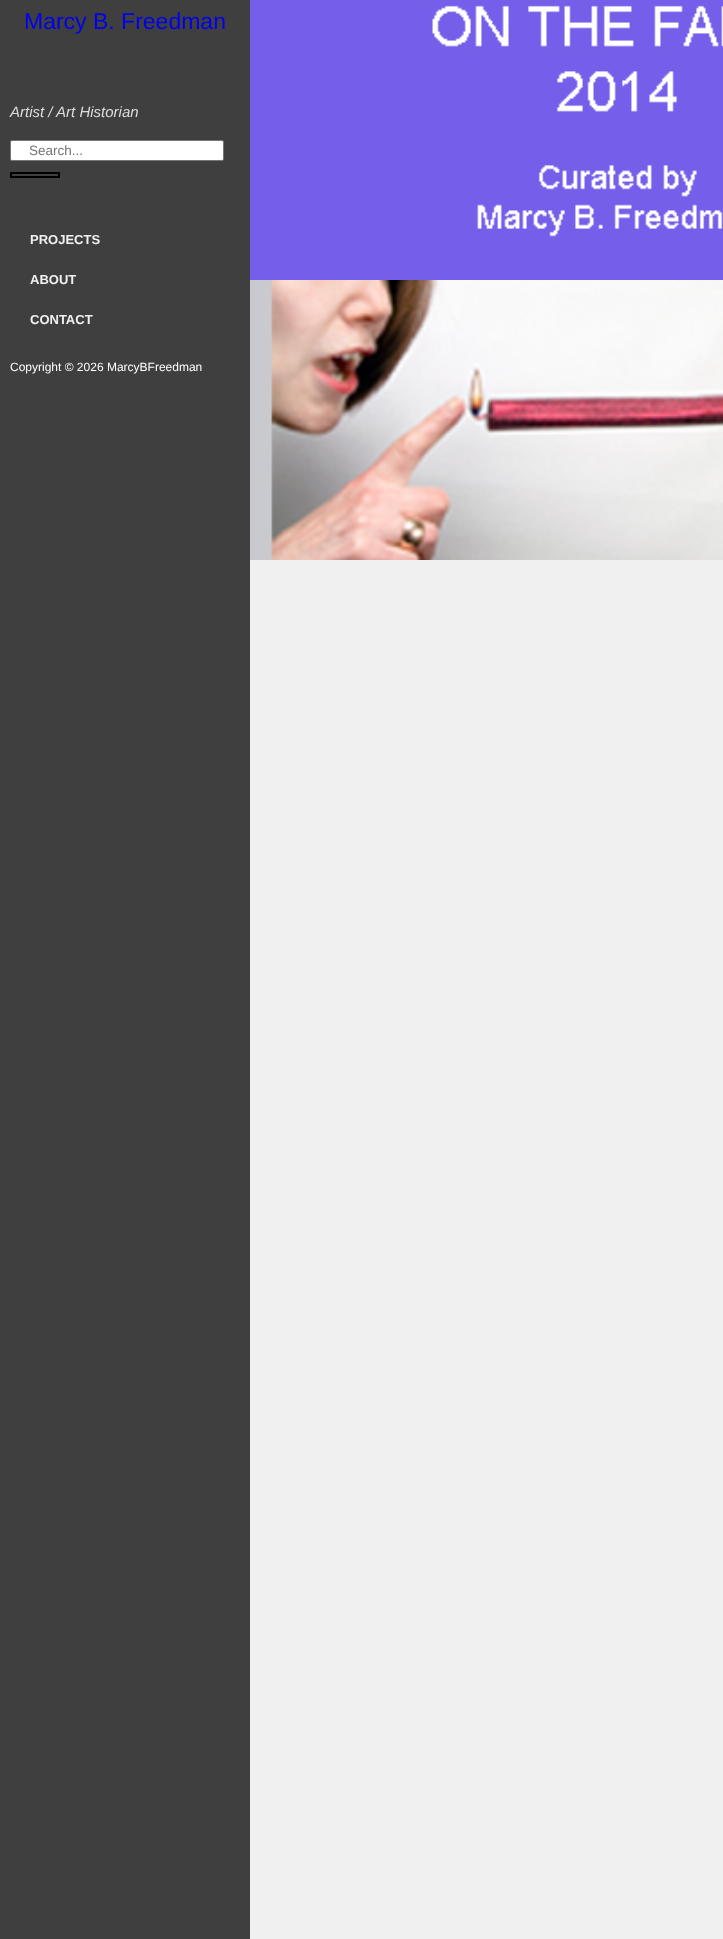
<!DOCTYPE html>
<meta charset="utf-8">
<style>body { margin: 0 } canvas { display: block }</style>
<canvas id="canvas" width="723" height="1939"></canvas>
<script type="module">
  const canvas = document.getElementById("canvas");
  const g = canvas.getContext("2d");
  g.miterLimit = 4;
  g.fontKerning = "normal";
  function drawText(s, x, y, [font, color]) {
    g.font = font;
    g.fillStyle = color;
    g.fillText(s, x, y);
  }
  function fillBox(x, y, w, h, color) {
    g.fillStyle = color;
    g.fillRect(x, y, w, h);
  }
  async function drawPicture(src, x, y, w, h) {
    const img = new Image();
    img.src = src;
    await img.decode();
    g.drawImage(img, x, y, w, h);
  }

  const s1 = ["23px Liberation Sans", "#0000EE"];
  const s2 = ["italic 15px Liberation Sans", "#DDDDDD"];
  const s3 = ["13.5px Liberation Sans", "#757575"];
  const s4 = ["bold 13px Liberation Sans", "#F1F0F0"];
  const s5 = ["12px Liberation Sans", "#FFFFFF"];

  fillBox(0, 0, 723, 1939, "#F1F0F0");
  fillBox(0, 0, 250, 1939, "#3F3F3F");
  drawText("Marcy B. Freedman", 24, 29, s1);
  drawText("Artist / Art Historian", 10, 117, s2);
  g.fillStyle = "#FFFFFF";
  g.beginPath();
  g.roundRect(10.5, 140.5, 213, 20, 1.5);
  g.fill();
  g.strokeStyle = "#767676";
  g.stroke();
  drawText("Search...", 29, 155, s3);
  g.strokeStyle = "#000000";
  g.lineWidth = 2;
  g.strokeRect(11, 173, 48, 4);
  drawText("PROJECTS", 30, 244, s4);
  drawText("ABOUT", 30, 284, s4);
  drawText("CONTACT", 30, 324, s4);
  drawText("Copyright © 2026 MarcyBFreedman", 10, 371, s5);
  await drawPicture("pic1.png", 250, 0, 473, 280);
  await drawPicture("pic2.png", 250, 280, 473, 280);
</script>
